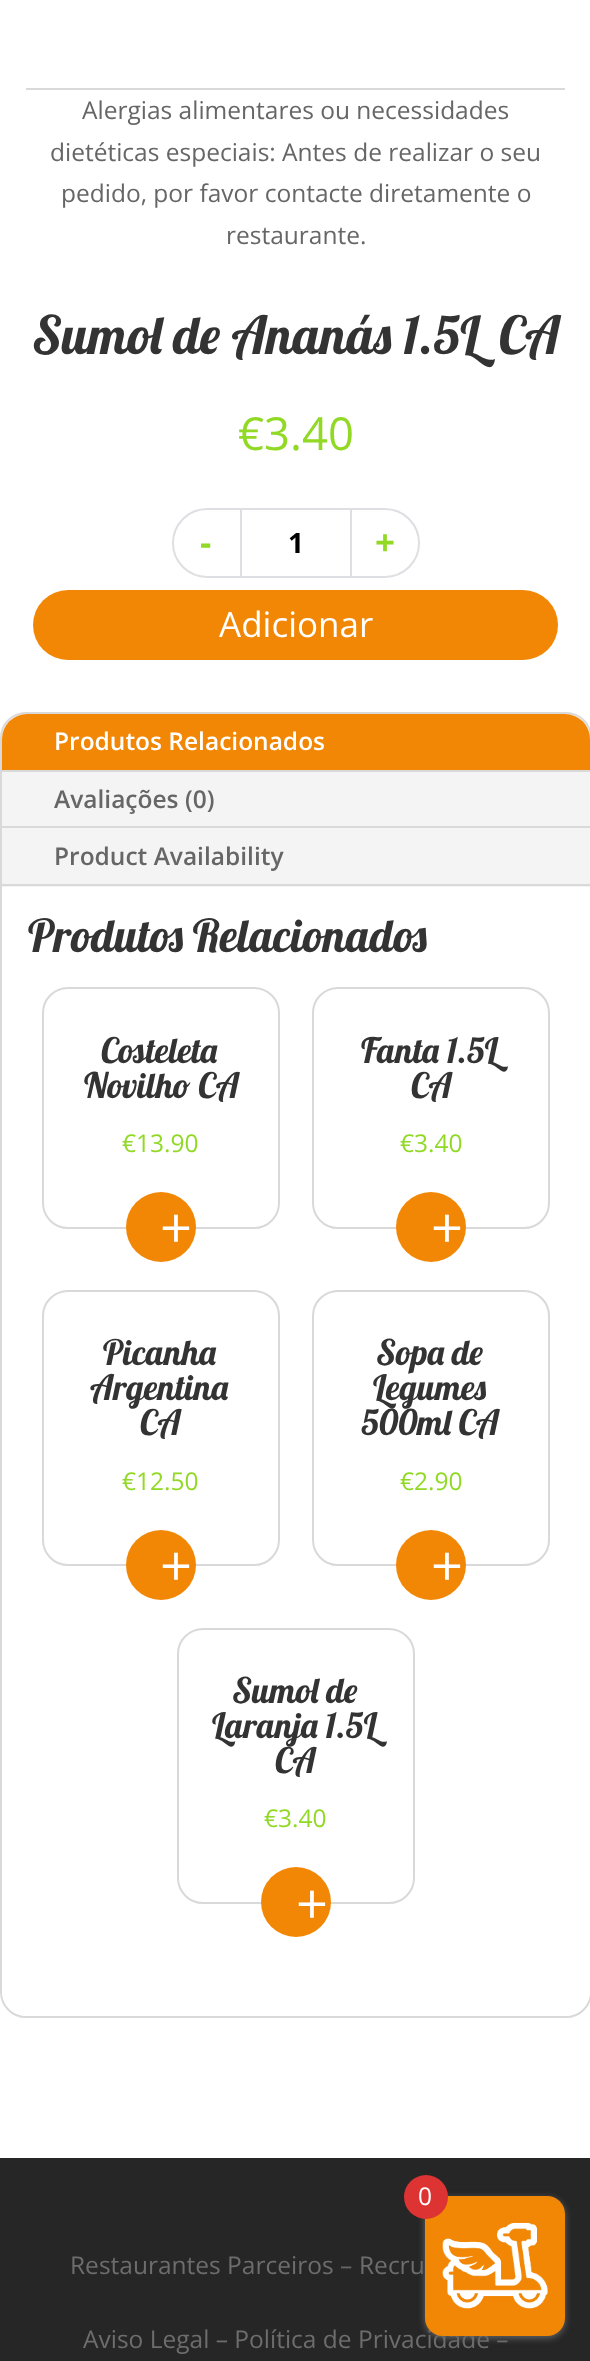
<!DOCTYPE html>
<meta charset="utf-8">
<style>body { margin: 0 } canvas { display: block }</style>
<canvas id="canvas" width="590" height="2361"></canvas>
<script type="module">
  const canvas = document.getElementById("canvas");
  const g = canvas.getContext("2d");
  g.miterLimit = 4;
  g.fontKerning = "none";
  function drawText(s, x, y, [font, color]) {
    g.font = font;
    g.fillStyle = color;
    g.fillText(s, x, y);
  }
  function fillBox(x, y, w, h, color) {
    g.fillStyle = color;
    g.fillRect(x, y, w, h);
  }
  function fillRounded(x, y, w, h, r, color) {
    g.fillStyle = color;
    g.beginPath();
    g.roundRect(x, y, w, h, r);
    g.fill();
  }
  async function drawPicture(src, x, y, w, h) {
    const img = new Image();
    img.src = src;
    await img.decode();
    g.drawImage(img, x, y, w, h);
  }

  const s1 = ["24.5px Open Sans", "#666666"];
  const s2 = ["52.5px Lobster", "#333333"];
  const s3 = ["45.5px Open Sans", "#91D925"];
  const s4 = ["bold 35px Open Sans", "#91D925"];
  const s5 = ["bold 28px Open Sans", "#000000"];
  const s6 = ["35px Open Sans", "#FFFFFF"];
  const s7 = ["600 24.5px Open Sans", "#FFFFFF"];
  const s8 = ["600 24.5px Open Sans", "#666666"];
  const s9 = ["45.5px Lobster", "#333333"];
  const s10 = ["35px Lobster", "#333333"];
  const s11 = ["24.5px Open Sans", "#91D925"];
  const s12 = ["56px Open Sans", "#FFFFFF"];
  const s13 = ["24.5px Open Sans", "#6D6D6D"];
  const s14 = ["24.5px Open Sans", "#FFFFFF"];

  fillBox(0, 0, 590, 2361, "#FFFFFF");
  fillBox(26, 88, 539, 2, "#D9D9D9");
  drawText("Alergias alimentares ou necessidades", 82, 119, s1);
  drawText("dietéticas especiais: Antes de realizar o seu", 50, 161, s1);
  drawText("pedido, por favor contacte diretamente o", 61, 202, s1);
  drawText("restaurante.", 226, 244, s1);
  drawText("Sumol de Ananás 1.5L", 32, 354, s2);
  drawText("CA", 499, 354, s2);
  drawText("€3.40", 238, 450, s3);
  g.beginPath();
  g.roundRect(173, 509, 68, 68, [34, 0, 0, 34]);
  g.strokeStyle = "#DDDFE2";
  g.lineWidth = 2;
  g.stroke();
  drawText("-", 200, 555, s4);
  fillBox(242, 508, 108, 2, "#DDDFE2");
  fillBox(242, 576, 108, 2, "#DDDFE2");
  drawText("1", 288, 553, s5);
  g.beginPath();
  g.roundRect(351, 509, 68, 68, [0, 34, 34, 0]);
  g.stroke();
  drawText("+", 375, 555, s4);
  fillRounded(33, 590, 525, 70, 35, "#F28705");
  drawText("Adicionar", 219, 637, s6);
  g.beginPath();
  g.roundRect(1, 713, 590, 1304, 25);
  g.strokeStyle = "#D9D9D9";
  g.stroke();
  g.fillStyle = "#F4F4F4";
  g.beginPath();
  g.roundRect(2, 714, 588, 173, [25, 25, 0, 0]);
  g.fill();
  g.fillStyle = "#F28705";
  g.beginPath();
  g.roundRect(2, 714, 588, 58, [25, 25, 0, 0]);
  g.fill();
  fillBox(2, 770, 588, 2, "#D9D9D9");
  drawText("Produtos Relacionados", 54, 750, s7);
  fillBox(2, 826, 588, 2, "#D9D9D9");
  drawText("Avaliações (0)", 54, 808, s8);
  drawText("Product Availability", 54, 865, s8);
  fillBox(2, 884, 588, 2, "#D9D9D9");
  g.fillStyle = "#FFFFFF";
  g.beginPath();
  g.roundRect(2, 887, 588, 1129, [0, 0, 25, 25]);
  g.fill();
  drawText("Produtos Relacionados", 28, 952, s9);
  g.beginPath();
  g.roundRect(43, 988, 236, 240, 25);
  g.stroke();
  drawText("Costeleta", 101, 1063, s10);
  drawText("Novilho CA", 84, 1098, s10);
  drawText("€13.90", 122, 1152, s11);
  g.fillStyle = "#F28705";
  g.beginPath();
  g.arc(161, 1227, 35, 0, Math.PI * 2);
  g.fill();
  drawText("+", 160, 1248, s12);
  g.beginPath();
  g.roundRect(313, 988, 236, 240, 25);
  g.stroke();
  drawText("Fanta 1.5L", 361, 1063, s10);
  drawText("CA", 411, 1098, s10);
  drawText("€3.40", 400, 1152, s11);
  g.fillStyle = "#F28705";
  g.beginPath();
  g.arc(431, 1227, 35, 0, Math.PI * 2);
  g.fill();
  drawText("+", 431, 1248, s12);
  g.beginPath();
  g.roundRect(43, 1291, 236, 274, 25);
  g.stroke();
  drawText("Picanha", 103, 1365, s10);
  drawText("Argentina", 90, 1400, s10);
  drawText("CA", 140, 1435, s10);
  drawText("€12.50", 122, 1490, s11);
  g.fillStyle = "#F28705";
  g.beginPath();
  g.arc(161, 1565, 35, 0, Math.PI * 2);
  g.fill();
  drawText("+", 160, 1586, s12);
  g.beginPath();
  g.roundRect(313, 1291, 236, 274, 25);
  g.stroke();
  drawText("Sopa de", 376, 1365, s10);
  drawText("Legumes", 373, 1400, s10);
  drawText("500ml CA", 361, 1435, s10);
  drawText("€2.90", 400, 1490, s11);
  g.fillStyle = "#F28705";
  g.beginPath();
  g.arc(431, 1565, 35, 0, Math.PI * 2);
  g.fill();
  drawText("+", 431, 1586, s12);
  g.beginPath();
  g.roundRect(178, 1629, 236, 274, 25);
  g.stroke();
  drawText("Sumol de", 232, 1703, s10);
  drawText("Laranja 1.5L", 212, 1738, s10);
  drawText("CA", 275, 1773, s10);
  drawText("€3.40", 264, 1827, s11);
  g.fillStyle = "#F28705";
  g.beginPath();
  g.arc(296, 1902, 35, 0, Math.PI * 2);
  g.fill();
  drawText("+", 296, 1924, s12);
  fillBox(0, 2158, 590, 203, "#262626");
  drawText("Restaurantes Parceiros", 70, 2274, s13);
  drawText("–", 340, 2274, s1);
  drawText("Recru", 359, 2274, s13);
  drawText("Aviso Legal – Política de Privacidade –", 83, 2348, s13);
  g.fillStyle = "#666666";
  g.filter = "blur(3.5px)";
  g.beginPath();
  g.roundRect(425, 2198, 140, 140, 18);
  g.fill();
  g.filter = "none";
  fillRounded(425, 2196, 140, 140, 18, "#F28705");
  g.fillStyle = "#DD3333";
  g.beginPath();
  g.arc(426, 2197, 22, 0, Math.PI * 2);
  g.fill();
  drawText("0", 418, 2205, s14);
  await drawPicture("pic1.png", 442, 2222, 106, 87);
</script>
